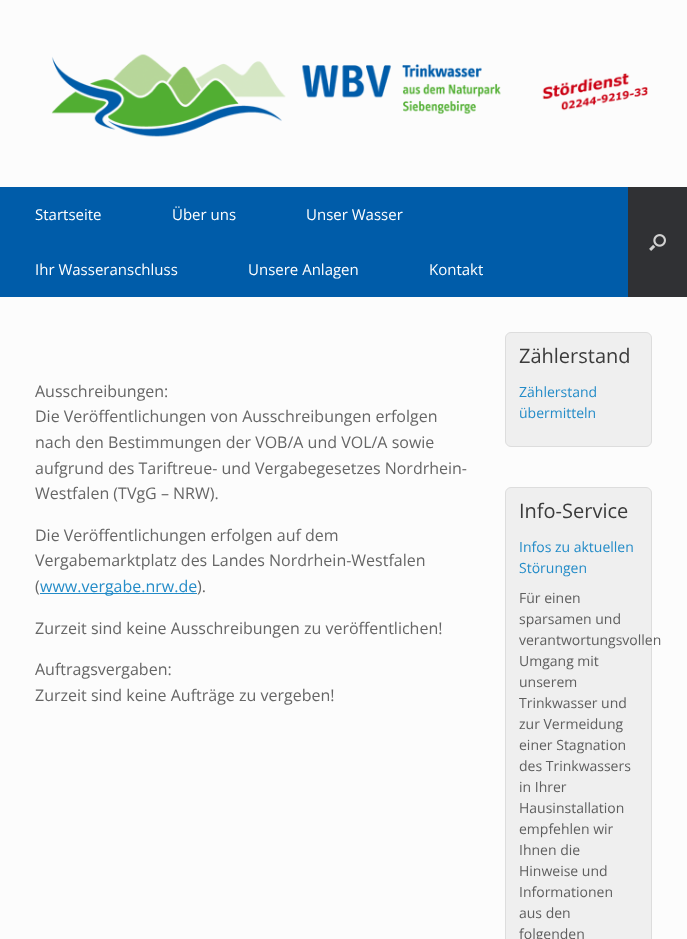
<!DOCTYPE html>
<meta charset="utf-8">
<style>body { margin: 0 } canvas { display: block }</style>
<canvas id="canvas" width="687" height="939"></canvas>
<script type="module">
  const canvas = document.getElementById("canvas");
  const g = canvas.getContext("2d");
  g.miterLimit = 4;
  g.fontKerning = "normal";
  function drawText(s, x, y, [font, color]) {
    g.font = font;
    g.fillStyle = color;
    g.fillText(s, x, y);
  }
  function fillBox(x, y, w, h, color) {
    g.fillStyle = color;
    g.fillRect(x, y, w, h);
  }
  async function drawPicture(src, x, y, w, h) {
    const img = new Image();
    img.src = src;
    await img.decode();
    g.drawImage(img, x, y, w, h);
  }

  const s1 = ["15px Open Sans", "#FFFFFF"];
  const s2 = ["16px Open Sans", "#666666"];
  const s3 = ["16px Open Sans", "#248CC8"];
  const s4 = ["20px Open Sans", "#3B3B3B"];
  const s5 = ["14px Open Sans", "#248CC8"];
  const s6 = ["14px Open Sans", "#5E5E5E"];

  fillBox(0, 0, 687, 939, "#FCFCFC");
  await drawPicture("pic1.png", 51, 54, 450, 83);
  await drawPicture("pic2.png", 542, 73, 106, 38);
  fillBox(0, 187, 628, 110, "#005CA9");
  drawText("Startseite", 35, 220, s1);
  drawText("Über uns", 172, 220, s1);
  drawText("Unser Wasser", 306, 220, s1);
  drawText("Ihr Wasseranschluss", 35, 275, s1);
  drawText("Unsere Anlagen", 248, 275, s1);
  drawText("Kontakt", 429, 275, s1);
  fillBox(628, 187, 59, 110, "#303134");
  await drawPicture("pic3.png", 649, 234, 17, 17);
  drawText("Ausschreibungen:", 35, 397, s2);
  drawText("Die Veröffentlichungen von Ausschreibungen erfolgen", 35, 422, s2);
  drawText("nach den Bestimmungen der VOB/A und VOL/A sowie", 35, 448, s2);
  drawText("aufgrund des Tariftreue- und Vergabegesetzes Nordrhein-", 35, 474, s2);
  drawText("Westfalen (TVgG – NRW).", 35, 499, s2);
  drawText("Die Veröffentlichungen erfolgen auf dem", 35, 541, s2);
  drawText("Vergabemarktplatz des Landes Nordrhein-Westfalen", 35, 566, s2);
  drawText("(", 35, 592, s2);
  fillBox(40, 593, 157, 1, "#248CC8");
  drawText("www.vergabe.nrw.de", 40, 592, s3);
  drawText(").", 197, 592, s2);
  drawText("Zurzeit sind keine Ausschreibungen zu veröffentlichen!", 35, 634, s2);
  drawText("Auftragsvergaben:", 35, 675, s2);
  drawText("Zurzeit sind keine Aufträge zu vergeben!", 35, 701, s2);
  g.fillStyle = "#EFEFEF";
  g.beginPath();
  g.roundRect(505.5, 332.5, 146, 114, 5.5);
  g.fill();
  g.strokeStyle = "#DDDDDD";
  g.stroke();
  drawText("Zählerstand", 519, 363, s4);
  drawText("Zählerstand", 519, 397, s5);
  drawText("übermitteln", 519, 418, s5);
  g.fillStyle = "#EFEFEF";
  g.beginPath();
  g.roundRect(505.5, 487.5, 146, 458, 5.5);
  g.fill();
  g.stroke();
  drawText("Info-Service", 519, 518, s4);
  drawText("Infos zu aktuellen", 519, 552, s5);
  drawText("Störungen", 519, 573, s5);
  drawText("Für einen", 519, 603, s6);
  drawText("sparsamen und", 519, 624, s6);
  drawText("verantwortungsvollen", 519, 645, s6);
  drawText("Umgang mit", 519, 666, s6);
  drawText("unserem", 519, 687, s6);
  drawText("Trinkwasser und", 519, 708, s6);
  drawText("zur Vermeidung", 519, 729, s6);
  drawText("einer Stagnation", 519, 750, s6);
  drawText("des Trinkwassers", 519, 771, s6);
  drawText("in Ihrer", 519, 792, s6);
  drawText("Hausinstallation", 519, 813, s6);
  drawText("empfehlen wir", 519, 834, s6);
  drawText("Ihnen die", 519, 855, s6);
  drawText("Hinweise und", 519, 876, s6);
  drawText("Informationen", 519, 897, s6);
  drawText("aus den", 519, 918, s6);
  drawText("folgenden", 519, 939, s6);
</script>
